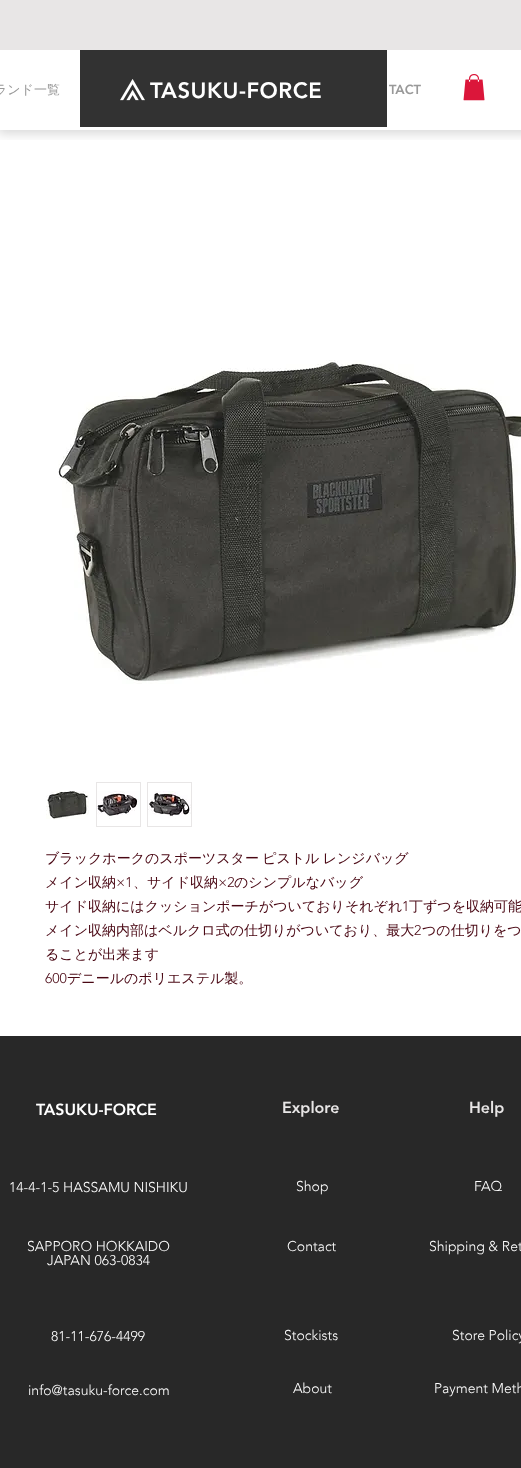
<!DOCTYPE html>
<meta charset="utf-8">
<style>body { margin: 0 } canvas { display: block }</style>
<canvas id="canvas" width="521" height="1468"></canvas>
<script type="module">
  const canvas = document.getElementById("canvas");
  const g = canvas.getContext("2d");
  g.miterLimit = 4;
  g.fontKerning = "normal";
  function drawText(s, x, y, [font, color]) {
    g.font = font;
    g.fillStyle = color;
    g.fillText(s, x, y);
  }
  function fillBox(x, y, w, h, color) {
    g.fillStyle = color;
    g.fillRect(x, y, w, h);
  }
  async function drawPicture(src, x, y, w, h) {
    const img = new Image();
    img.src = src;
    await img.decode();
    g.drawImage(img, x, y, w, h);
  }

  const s1 = ["900 22px 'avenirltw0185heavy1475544'", "#FFFFFF"];
  const s2 = ["500 13px WenQuanYi Zen Hei", "#999999"];
  const s3 = ["900 13px 'avenirltw0185heavy1475544'", "#999999"];
  const s4 = ["500 14px WenQuanYi Zen Hei", "#490713"];
  const s5 = ["300 14px 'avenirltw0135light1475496'", "#490713"];
  const s6 = ["900 16px 'avenirltw0185heavy1475544'", "#FFFFFF"];
  const s7 = ["900 16px 'avenirltw0185heavy1475544'", "#E8E6E6"];
  const s8 = ["300 14px 'avenirltw0135light1475496'", "#FFFFFF"];

  fillBox(0, 0, 521, 1468, "#FFFFFF");
  g.save();
  g.beginPath();
  g.rect(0, 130, 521, 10);
  g.clip();
  g.fillStyle = "rgba(0, 0, 0, 0.15)";
  g.filter = "blur(5.5px)";
  g.beginPath();
  g.rect(-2, 0, 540, 134);
  g.fill();
  g.filter = "none";
  g.restore();
  fillBox(0, 0, 521, 50, "#E8E6E6");
  fillBox(80, 50, 307, 77, "#323232");
  await drawPicture("pic1.png", 120, 79, 25, 22);
  g.letterSpacing = "0.5px";
  drawText("TASUKU-FORCE", 150, 98, s1);
  g.letterSpacing = "0px";
  drawText("ランド一覧", -6, 94, s2);
  drawText("TACT", 389, 94, s3);
  await drawPicture("pic2.png", 463, 74, 22, 27);
  await drawPicture("pic3.png", 58, 360, 463, 324);
  await drawPicture("pic4.png", 46, 791, 43, 28);
  g.strokeStyle = "#E8E6E6";
  g.strokeRect(96.5, 782.5, 44, 44);
  await drawPicture("pic5.png", 97, 791, 43, 28);
  g.strokeRect(147.5, 782.5, 44, 44);
  await drawPicture("pic6.png", 148, 791, 43, 28);
  g.wordSpacing = "-1px";
  drawText("ブラックホークのスポーツスター ピストル レンジバッグ", 45, 863, s4);
  g.wordSpacing = "0px";
  drawText("メイン収納", 45, 887, s4);
  drawText("×1", 116, 887, s5);
  drawText("、サイド収納", 133, 887, s4);
  drawText("×2", 218, 887, s5);
  drawText("のシンプルなバッグ", 234, 887, s4);
  drawText("サイド収納にはクッションポーチがついておりそれぞれ", 45, 911, s4);
  drawText("1", 402, 911, s5);
  drawText("丁ずつを収納可能", 409, 911, s4);
  drawText("メイン収納内部はベルクロ式の仕切りがついており、最大", 45, 935, s4);
  drawText("2", 414, 935, s5);
  drawText("つの仕切りをつ", 422, 935, s4);
  drawText("ることが出来ます", 45, 959, s4);
  drawText("600", 45, 983, s5);
  drawText("デニールのポリエステル製。", 67, 983, s4);
  fillBox(0, 1036, 521, 432, "#282828");
  drawText("TASUKU-FORCE", 36, 1115, s6);
  drawText("Explore", 282, 1113, s7);
  drawText("Help", 469, 1113, s7);
  drawText("14-4-1-5 HASSAMU NISHIKU", 9, 1192, s8);
  drawText("Shop", 296, 1191, s8);
  drawText("FAQ", 474, 1191, s8);
  drawText("SAPPORO HOKKAIDO", 27, 1251, s8);
  drawText("JAPAN 063-0834", 47, 1265, s8);
  drawText("Contact", 287, 1251, s8);
  drawText("Shipping & Ret", 429, 1251, s8);
  drawText("81-11-676-4499", 51, 1341, s8);
  drawText("Stockists", 284, 1340, s8);
  drawText("Store Policy", 452, 1340, s8);
  drawText("info@tasuku-force.com", 28, 1395, s8);
  drawText("About", 293, 1393, s8);
  drawText("Payment Meth", 434, 1393, s8);
</script>
